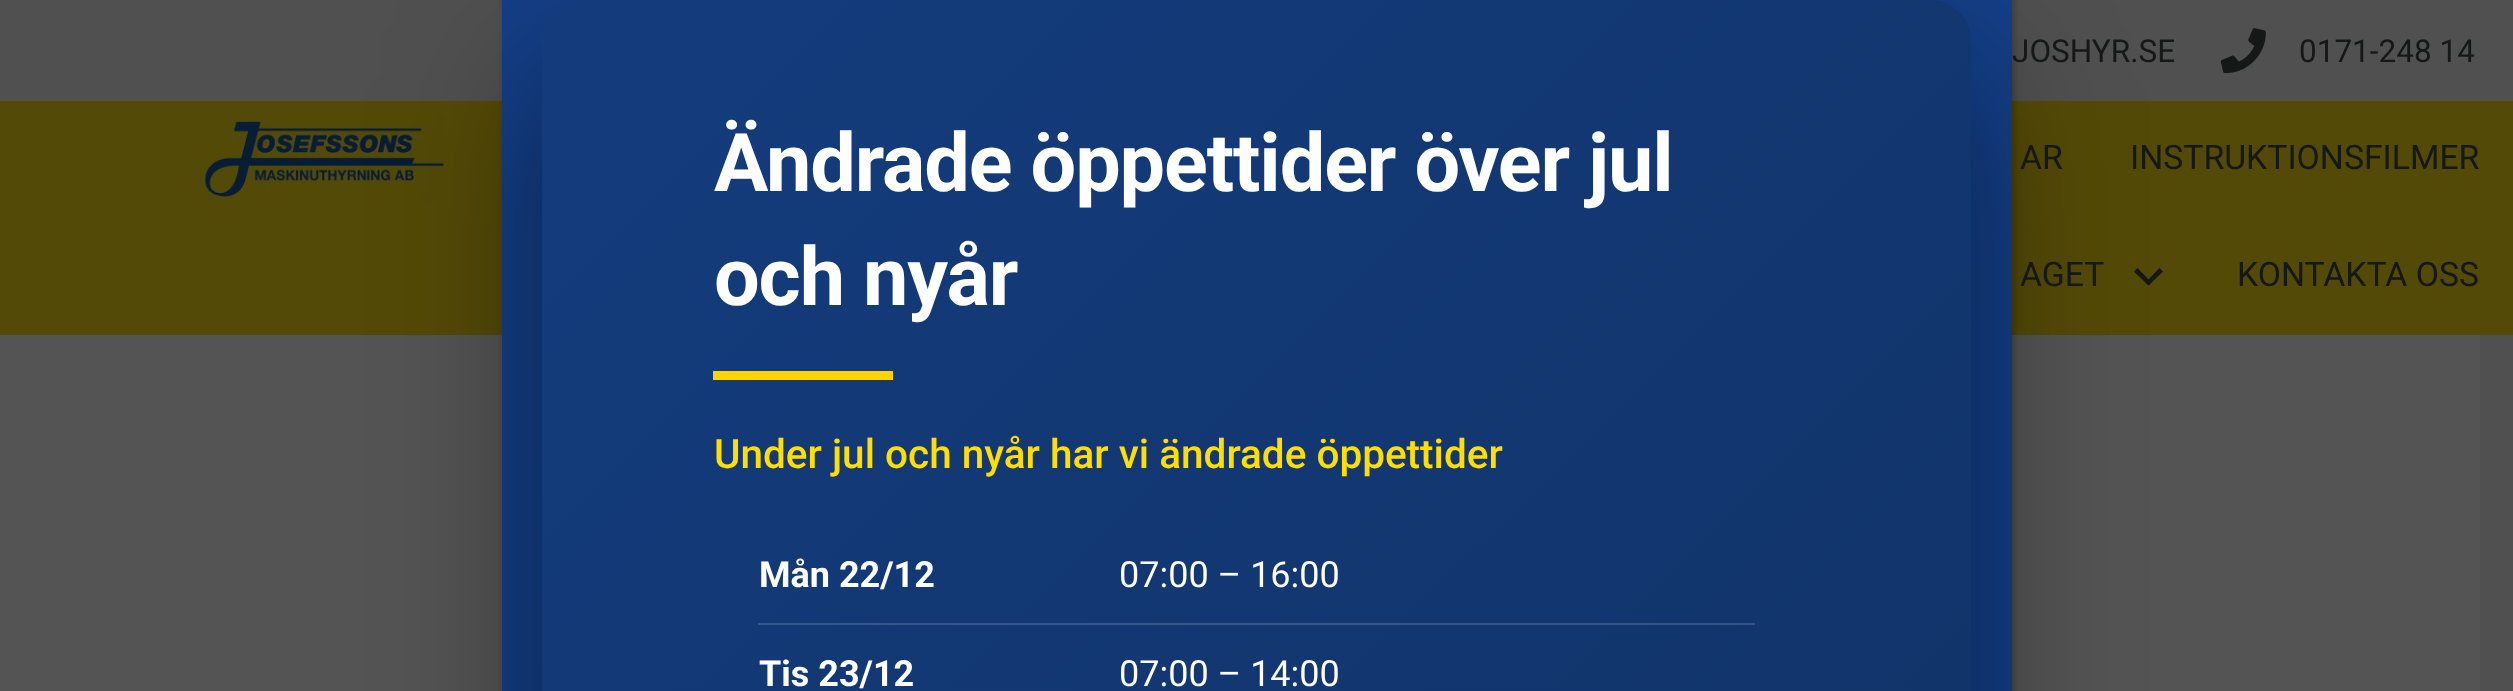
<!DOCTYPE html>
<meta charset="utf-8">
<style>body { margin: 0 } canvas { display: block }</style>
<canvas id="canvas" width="2513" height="691"></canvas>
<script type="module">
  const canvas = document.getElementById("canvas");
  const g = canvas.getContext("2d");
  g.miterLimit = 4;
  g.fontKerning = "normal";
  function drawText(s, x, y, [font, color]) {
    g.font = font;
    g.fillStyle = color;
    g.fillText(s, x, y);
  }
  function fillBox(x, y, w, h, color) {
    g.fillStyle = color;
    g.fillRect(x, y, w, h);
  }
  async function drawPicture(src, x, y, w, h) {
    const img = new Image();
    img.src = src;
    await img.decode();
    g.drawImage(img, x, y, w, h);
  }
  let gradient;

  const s1 = ["bold 81px Roboto", "#FFFFFF"];
  const s2 = ["500 40.5px Roboto", "#FFDE00"];
  const s3 = ["bold 36px Roboto", "#FFFFFF"];
  const s4 = ["36px Roboto", "#FFFFFF"];
  const s5 = ["31.5px Roboto", "#161717"];
  const s6 = ["33.75px Roboto", "#161717"];

  fillBox(0, 0, 2513, 691, "#505050");
  fillBox(0, 101, 2513, 234, "#544A07");
  fillBox(0, 335, 2480, 356, "#545454");
  g.fillStyle = "rgba(2, 2, 2, 0.23)";
  g.filter = "blur(3.5px)";
  g.beginPath();
  g.rect(504, -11, 1510, 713);
  g.fill();
  g.filter = "none";
  fillBox(502, 0, 1510, 691, "#143F88");
  await drawPicture("pic2.png", 199, 116, 246, 87);
  g.fillStyle = "#161717";
  g.beginPath();
  g.moveTo(2159.5, 268);
  g.lineTo(2163, 271.5);
  g.lineTo(2148.5, 285.5);
  g.lineTo(2145.5, 282.5);
  g.closePath();
  g.fill();
  g.beginPath();
  g.moveTo(2137.5, 268);
  g.lineTo(2151.5, 282.5);
  g.lineTo(2148.5, 285.5);
  g.lineTo(2134, 271.5);
  g.closePath();
  g.fill();
  g.fillStyle = "rgba(0, 0, 0, 0.45)";
  g.filter = "blur(79px)";
  g.beginPath();
  g.roundRect(542, 68, 1429, 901, 41);
  g.fill();
  g.filter = "none";
  gradient = g.createLinearGradient(390, 152, 2123, 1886);
  gradient.addColorStop(0, "#143C7D");
  gradient.addColorStop(1, "#0F2F5F");
  g.fillStyle = gradient;
  g.beginPath();
  g.moveTo(583, 0);
  g.lineTo(1930, 0);
  g.bezierCurveTo(1952.5, 0, 1971, 18.5, 1971, 41);
  g.lineTo(1971, 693);
  g.lineTo(542, 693);
  g.lineTo(542, 41);
  g.bezierCurveTo(542, 18.5, 560.5, 0, 583, 0);
  g.closePath();
  g.fill();
  gradient = g.createLinearGradient(390, 152, 2123, 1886);
  gradient.addColorStop(0, "#375991");
  gradient.addColorStop(1, "#334E77");
  g.fillStyle = gradient;
  g.fillRect(758, 623, 997, 2);
  g.letterSpacing = "-1.1px";
  drawText("Ändrade öppettider över jul", 714, 191, s1);
  drawText("och nyår", 714, 305, s1);
  fillBox(713, 371, 180, 9, "#FFD400");
  g.letterSpacing = "0px";
  drawText("Under jul och nyår har vi ändrade öppettider", 714, 468, s2);
  drawText("Mån 22/12", 759, 587, s3);
  drawText("07:00 – 16:00", 1119, 587, s4);
  drawText("Tis 23/12", 759, 686, s3);
  drawText("07:00 – 14:00", 1119, 686, s4);
  drawText("JOSHYR.SE", 2012, 62, s5);
  await drawPicture("pic1.png", 2220, 28, 46, 46);
  drawText("0171-248 14", 2299, 62, s5);
  drawText("AR", 2020, 169, s6);
  drawText("INSTRUKTIONSFILMER", 2130, 169, s6);
  drawText("AGET", 2020, 286, s6);
  drawText("KONTAKTA OSS", 2237, 286, s6);
</script>
